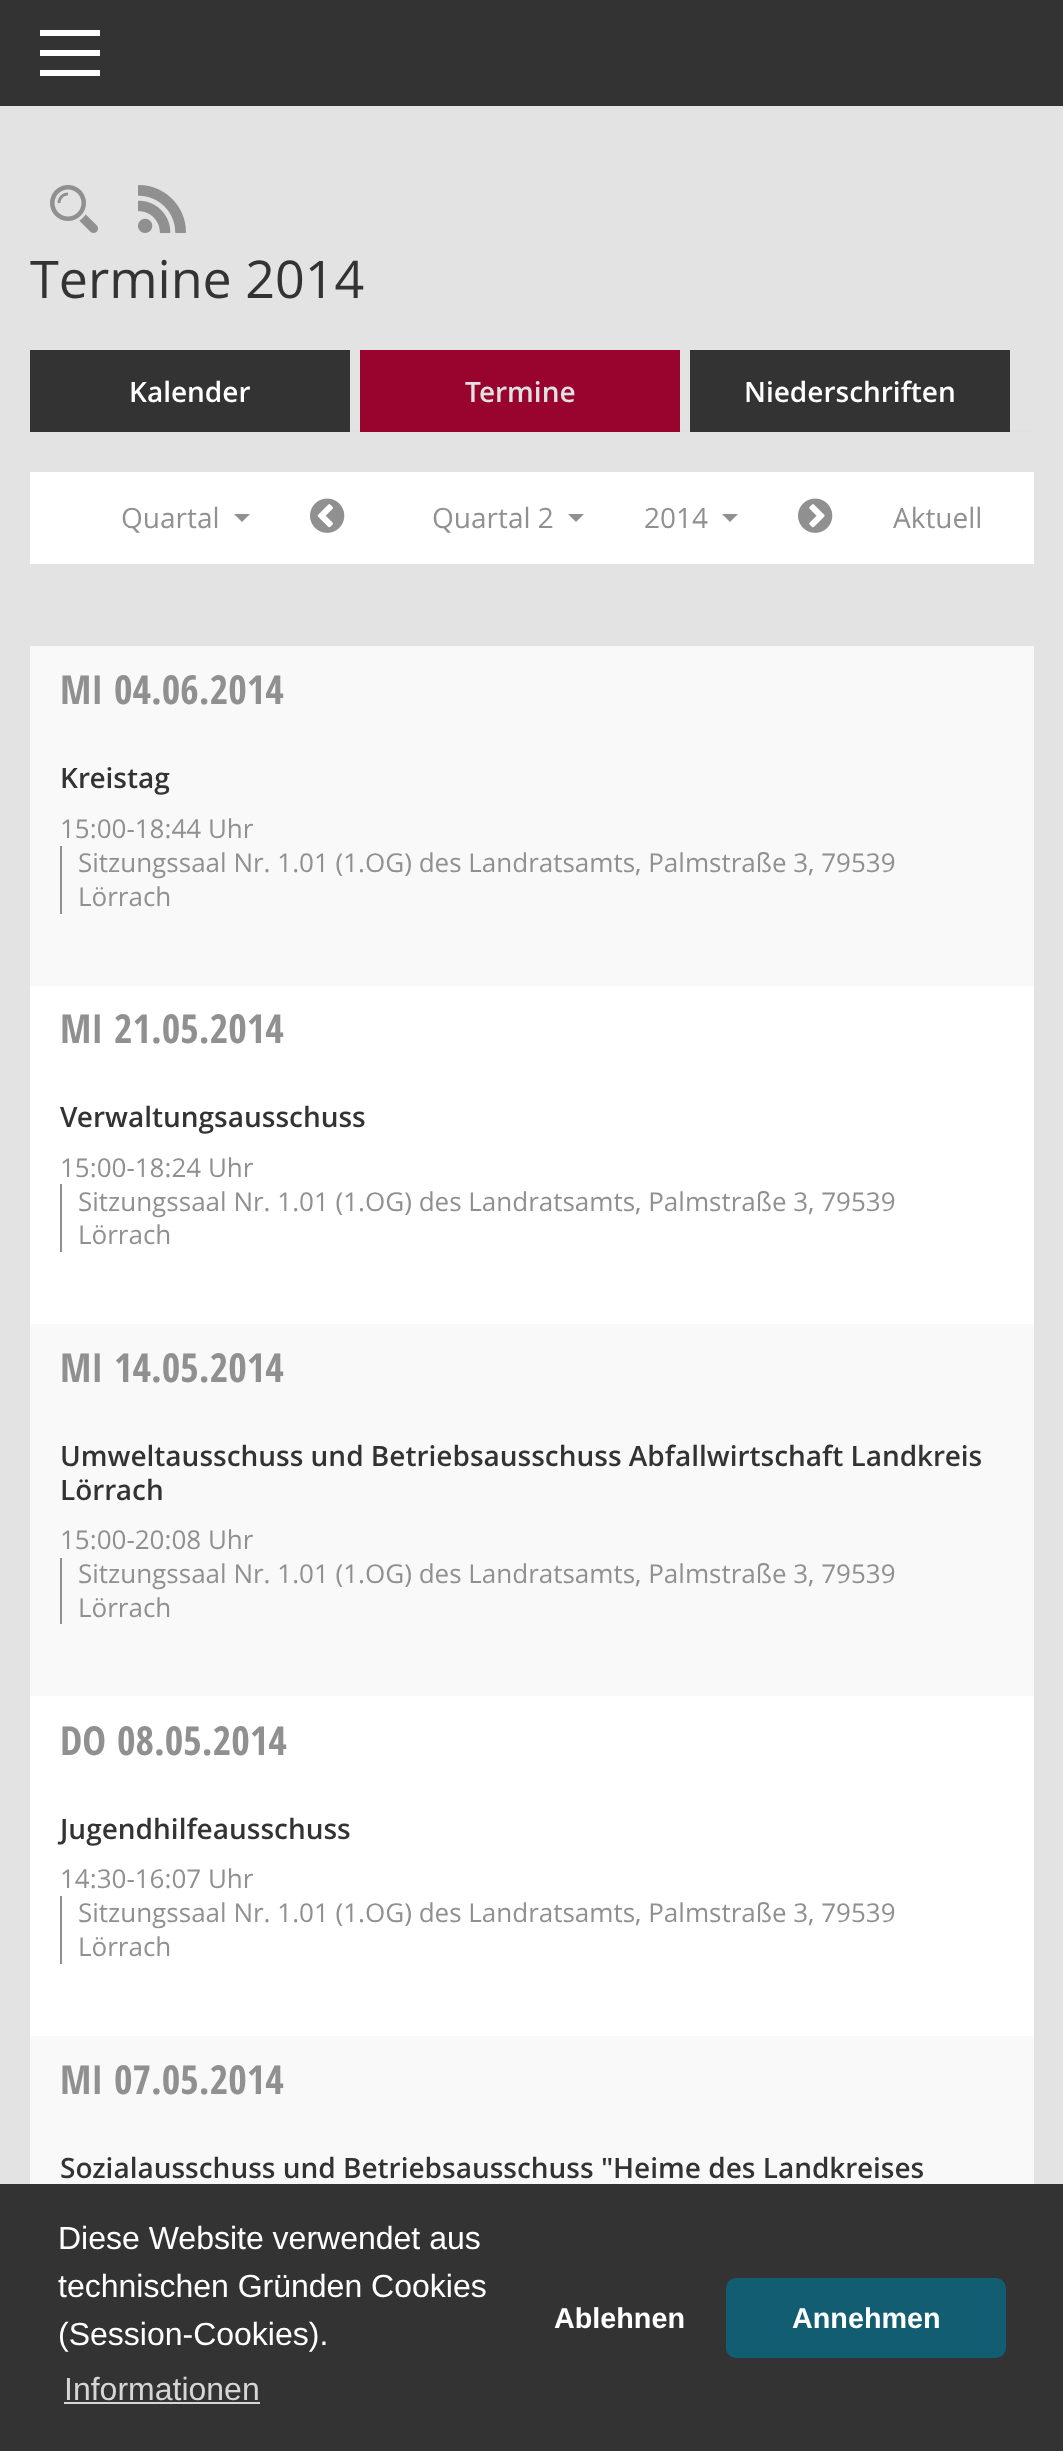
<!DOCTYPE html>
<meta charset="utf-8">
<style>body { margin: 0 } canvas { display: block }</style>
<canvas id="canvas" width="1063" height="2451"></canvas>
<script type="module">
  const canvas = document.getElementById("canvas");
  const g = canvas.getContext("2d");
  g.miterLimit = 4;
  g.fontKerning = "normal";
  function drawText(s, x, y, [font, color]) {
    g.font = font;
    g.fillStyle = color;
    g.fillText(s, x, y);
  }
  function fillBox(x, y, w, h, color) {
    g.fillStyle = color;
    g.fillRect(x, y, w, h);
  }
  function fillRounded(x, y, w, h, r, color) {
    g.fillStyle = color;
    g.beginPath();
    g.roundRect(x, y, w, h, r);
    g.fill();
  }
  async function drawPicture(src, x, y, w, h) {
    const img = new Image();
    img.src = src;
    await img.decode();
    g.drawImage(img, x, y, w, h);
  }

  const s1 = ["52px Open Sans", "#333333"];
  const s2 = ["600 28px Open Sans", "#FFFFFF"];
  const s3 = ["600 28px Open Sans", "#E1E1E1"];
  const s4 = ["28px Open Sans", "#909090"];
  const s5 = ["bold 40px Open Sans Condensed", "#909090"];
  const s6 = ["600 28px Open Sans", "#333333"];
  const s7 = ["26px Open Sans", "#909090"];
  const s8 = ["32px Liberation Sans", "#FFFFFF"];
  const s9 = ["32px Liberation Sans", "#D6D6D6"];
  const s10 = ["bold 28.75px Liberation Sans", "#FFFFFF"];

  fillBox(0, 0, 1063, 2451, "#E3E3E3");
  fillBox(0, 0, 1063, 106, "#333333");
  fillBox(40, 30, 60, 6, "#FFFFFF");
  fillBox(40, 50, 60, 6, "#FFFFFF");
  fillBox(40, 70, 60, 6, "#FFFFFF");
  await drawPicture("pic1.png", 50, 185, 48, 48);
  await drawPicture("pic2.png", 138, 185, 48, 48);
  drawText("Termine 2014", 30, 298, s1);
  fillBox(350, 430, 684, 2, "#DEE2E6");
  fillBox(30, 350, 320, 82, "#333333");
  drawText("Kalender", 129, 402, s2);
  fillBox(360, 350, 320, 82, "#99042E");
  drawText("Termine", 465, 402, s3);
  fillBox(690, 350, 320, 82, "#333333");
  drawText("Niederschriften", 744, 402, s2);
  fillBox(30, 472, 1004, 92, "#FFFFFF");
  drawText("Quartal", 121, 528, s4);
  g.beginPath();
  g.moveTo(234, 514);
  g.lineTo(250, 514);
  g.lineTo(242, 522);
  g.closePath();
  g.fill();
  await drawPicture("pic3.png", 310, 498, 35, 35);
  drawText("Quartal 2", 432, 528, s4);
  g.beginPath();
  g.moveTo(568, 514);
  g.lineTo(584, 514);
  g.lineTo(576, 522);
  g.closePath();
  g.fill();
  drawText("2014", 644, 528, s4);
  g.beginPath();
  g.moveTo(722, 514);
  g.lineTo(738, 514);
  g.lineTo(730, 522);
  g.closePath();
  g.fill();
  await drawPicture("pic4.png", 798, 498, 35, 35);
  drawText("Aktuell", 893, 528, s4);
  fillBox(30, 986, 1004, 1050, "#FFFFFF");
  fillBox(30, 646, 1004, 340, "#F9F9F9");
  drawText("MI", 60, 704, s5);
  drawText("04.06.2014", 114, 704, s5);
  drawText("Kreistag", 60, 788, s6);
  drawText("15:00-18:44 Uhr", 60, 838, s7);
  fillBox(60, 846, 2, 68, "#909090");
  drawText("Sitzungssaal Nr. 1.01 (1.OG) des Landratsamts, Palmstraße 3, 79539", 78, 872, s7);
  drawText("Lörrach", 78, 906, s7);
  drawText("MI", 60, 1043, s5);
  drawText("21.05.2014", 114, 1043, s5);
  drawText("Verwaltungsausschuss", 60, 1127, s6);
  drawText("15:00-18:24 Uhr", 60, 1177, s7);
  fillBox(60, 1184, 2, 68, "#909090");
  drawText("Sitzungssaal Nr. 1.01 (1.OG) des Landratsamts, Palmstraße 3, 79539", 78, 1211, s7);
  drawText("Lörrach", 78, 1244, s7);
  fillBox(30, 1324, 1004, 372, "#F9F9F9");
  drawText("MI", 60, 1382, s5);
  drawText("14.05.2014", 114, 1382, s5);
  drawText("Umweltausschuss und Betriebsausschuss Abfallwirtschaft Landkreis", 60, 1466, s6);
  drawText("Lörrach", 60, 1500, s6);
  drawText("15:00-20:08 Uhr", 60, 1549, s7);
  fillBox(60, 1558, 2, 66, "#909090");
  drawText("Sitzungssaal Nr. 1.01 (1.OG) des Landratsamts, Palmstraße 3, 79539", 78, 1583, s7);
  drawText("Lörrach", 78, 1617, s7);
  drawText("DO", 60, 1755, s5);
  drawText("08.05.2014", 117, 1755, s5);
  drawText("Jugendhilfeausschuss", 60, 1839, s6);
  drawText("14:30-16:07 Uhr", 60, 1888, s7);
  fillBox(60, 1896, 2, 68, "#909090");
  drawText("Sitzungssaal Nr. 1.01 (1.OG) des Landratsamts, Palmstraße 3, 79539", 78, 1922, s7);
  drawText("Lörrach", 78, 1956, s7);
  fillBox(30, 2036, 1004, 148, "#F9F9F9");
  drawText("MI", 60, 2094, s5);
  drawText("07.05.2014", 114, 2094, s5);
  drawText("Sozialausschuss und Betriebsausschuss \"Heime des Landkreises", 60, 2178, s6);
  fillBox(0, 2184, 1063, 267, "#333333");
  drawText("Diese Website verwendet aus", 58, 2249, s8);
  drawText("technischen Gründen Cookies", 58, 2297, s8);
  drawText("(Session-Cookies).", 58, 2345, s8);
  drawText("Informationen", 64, 2400, s9);
  fillBox(64, 2402, 196, 2, "#D6D6D6");
  drawText("Ablehnen", 554, 2328, s10);
  fillRounded(726, 2278, 280, 80, 10, "#135D72");
  drawText("Annehmen", 792, 2328, s10);
</script>
